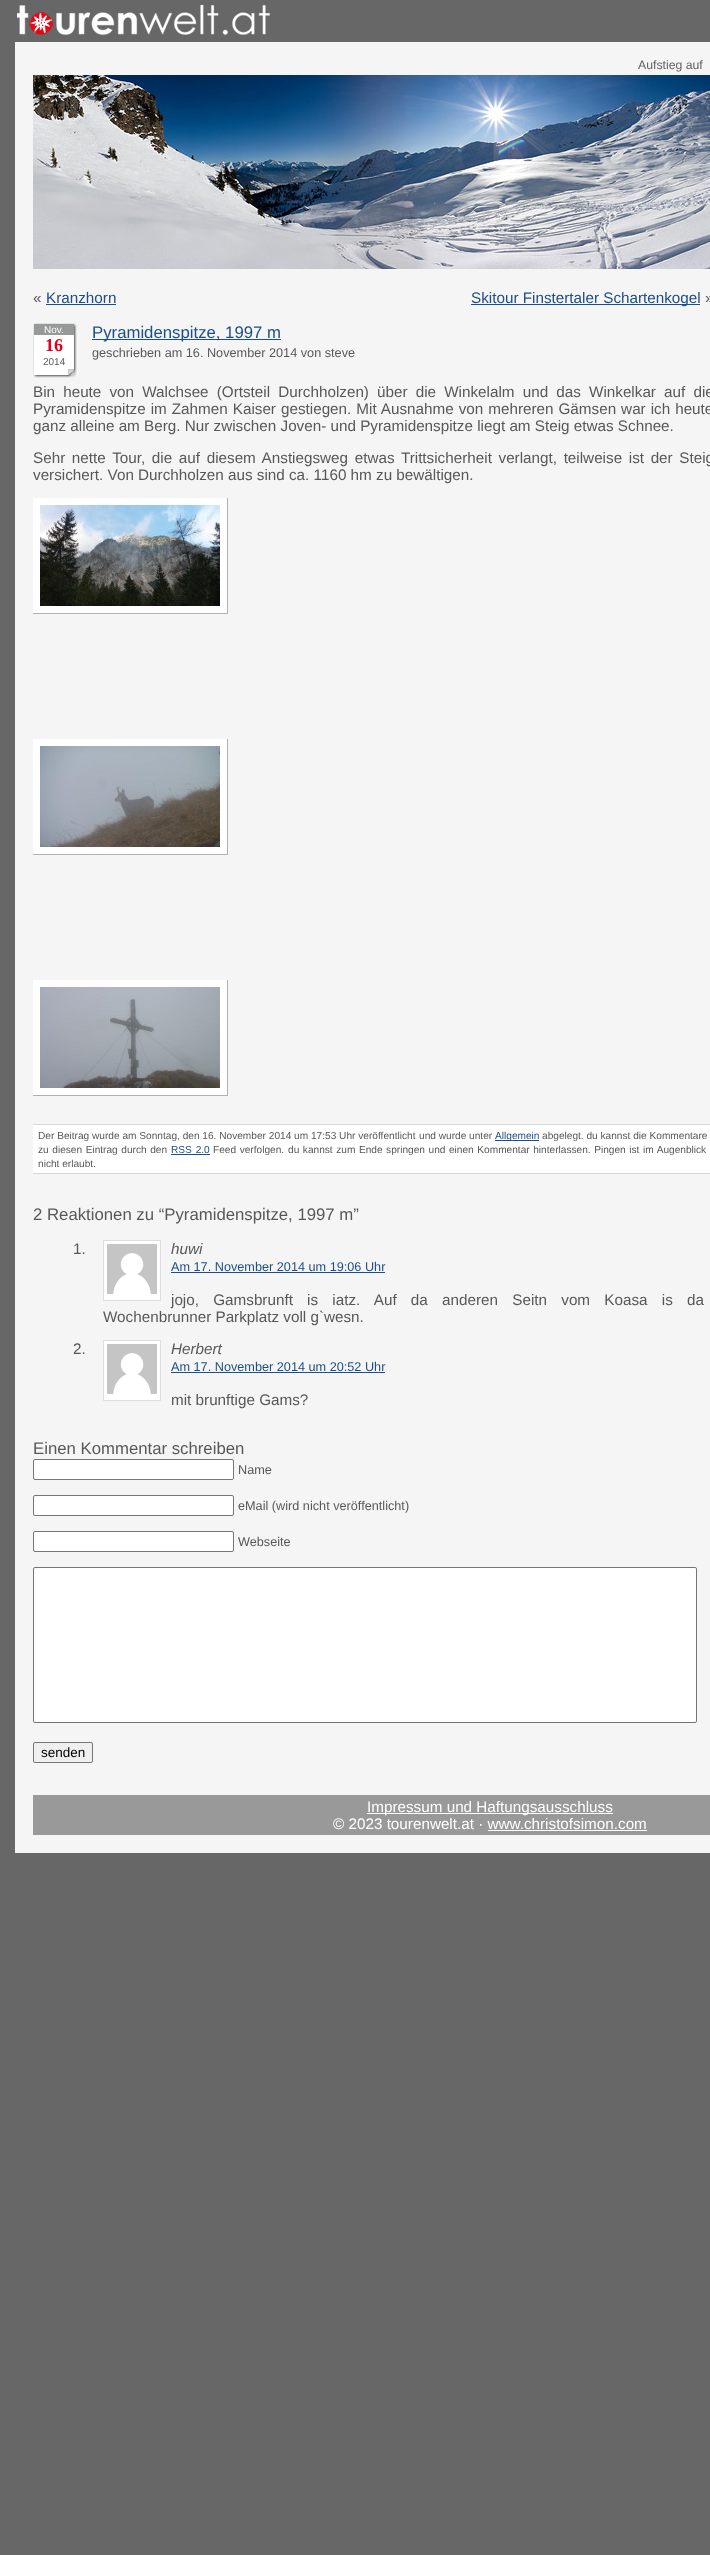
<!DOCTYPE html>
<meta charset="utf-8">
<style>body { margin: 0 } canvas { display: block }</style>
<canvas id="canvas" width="710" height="2555"></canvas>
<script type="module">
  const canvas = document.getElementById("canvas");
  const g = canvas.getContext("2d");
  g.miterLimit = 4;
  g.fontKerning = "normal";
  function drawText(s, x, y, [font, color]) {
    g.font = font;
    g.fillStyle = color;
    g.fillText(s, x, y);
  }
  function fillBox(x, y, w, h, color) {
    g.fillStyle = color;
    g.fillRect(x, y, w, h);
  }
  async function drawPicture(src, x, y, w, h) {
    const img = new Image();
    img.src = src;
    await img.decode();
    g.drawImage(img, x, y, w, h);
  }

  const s1 = ["12.25px Liberation Sans", "#616161"];
  const s2 = ["15.25px Liberation Sans", "#585858"];
  const s3 = ["15.25px Liberation Sans", "#1C4E89"];
  const s4 = ["10px Liberation Sans", "#FFFFFF"];
  const s5 = ["bold 18px Liberation Serif", "#E3001B"];
  const s6 = ["10px Liberation Sans", "#585858"];
  const s7 = ["16.75px Liberation Sans", "#1C4E89"];
  const s8 = ["12.7px Liberation Sans", "#585858"];
  const s9 = ["10.15px Liberation Sans", "#585858"];
  const s10 = ["10.15px Liberation Sans", "#1C4E89"];
  const s11 = ["16.75px Liberation Sans", "#585858"];
  const s12 = ["italic 15.25px Liberation Sans", "#585858"];
  const s13 = ["12.7px Liberation Sans", "#1C4E89"];
  const s14 = ["13.5px Liberation Sans", "#000000"];
  const s15 = ["15.25px Liberation Sans", "#FFFFFF"];

  fillBox(0, 0, 710, 2555, "#676767");
  await drawPicture("pic1.png", 17, 5, 253, 30);
  fillBox(15, 42, 695, 1811, "#F5F5F5");
  drawText("Aufstieg auf", 638, 69, s1);
  await drawPicture("pic2.png", 33, 75, 677, 194);
  drawText("«", 33, 303, s2);
  drawText("Kranzhorn", 46, 303, s3);
  fillBox(46, 304, 70, 1, "#1C4E89");
  fillBox(471, 304, 229, 1, "#1C4E89");
  drawText("Skitour Finstertaler Schartenkogel", 471, 303, s3);
  drawText("»", 705, 303, s2);
  await drawPicture("pic3.png", 33, 323, 44, 55);
  fillBox(34, 324, 40, 11, "#979898");
  drawText("Nov.", 44, 333, s4);
  drawText("16", 45, 351, s5);
  drawText("2014", 43, 365, s6);
  fillBox(92, 339, 189, 1, "#1C4E89");
  drawText("Pyramidenspitze, 1997 m", 92, 338, s7);
  drawText("geschrieben am 16. November 2014 von steve", 92, 357, s8);
  g.wordSpacing = "3.9px";
  drawText("Bin heute von Walchsee (Ortsteil Durchholzen) über die Winkelalm und das Winkelkar auf die", 33, 397, s2);
  g.wordSpacing = "0.75px";
  drawText("Pyramidenspitze im Zahmen Kaiser gestiegen. Mit Ausnahme von mehreren Gämsen war ich heute", 33, 414, s2);
  g.wordSpacing = "0px";
  drawText("ganz alleine am Berg. Nur zwischen Joven- und Pyramidenspitze liegt am Steig etwas Schnee.", 33, 431, s2);
  g.wordSpacing = "2.4px";
  drawText("Sehr nette Tour, die auf diesem Anstiegsweg etwas Trittsicherheit verlangt, teilweise ist der Steig", 33, 463, s2);
  g.wordSpacing = "0px";
  drawText("versichert. Von Durchholzen aus sind ca. 1160 hm zu bewältigen.", 33, 480, s2);
  fillBox(33, 498, 194, 115, "#FFFFFF");
  fillBox(227, 498, 1, 116, "#B1B1B1");
  await drawPicture("pic4.png", 40, 505, 180, 101);
  fillBox(33, 613, 195, 1, "#B1B1B1");
  fillBox(33, 739, 194, 115, "#FFFFFF");
  fillBox(227, 739, 1, 116, "#B1B1B1");
  await drawPicture("pic5.png", 40, 746, 180, 101);
  fillBox(33, 854, 195, 1, "#B1B1B1");
  fillBox(33, 980, 194, 115, "#FFFFFF");
  fillBox(227, 980, 1, 116, "#B1B1B1");
  await drawPicture("pic6.png", 40, 987, 180, 101);
  fillBox(33, 1095, 195, 1, "#B1B1B1");
  fillBox(33, 1125, 677, 48, "#FFFFFF");
  fillBox(33, 1124, 677, 1, "#D7D7D7");
  fillBox(33, 1173, 677, 1, "#D7D7D7");
  drawText("Der Beitrag wurde am Sonntag, den 16. November 2014 um 17:53 Uhr veröffentlicht", 38, 1139, s9);
  drawText("und wurde unter", 419, 1139, s9);
  fillBox(495, 1140, 44, 1, "#1C4E89");
  drawText("Allgemein", 495, 1139, s10);
  drawText("abgelegt. du kannst die Kommentare", 542, 1139, s9);
  g.wordSpacing = "0.75px";
  drawText("zu diesen Eintrag durch den", 38, 1153, s9);
  g.wordSpacing = "1px";
  drawText("RSS 2.0", 171, 1153, s10);
  fillBox(171, 1154, 39, 1, "#1C4E89");
  g.wordSpacing = "0.75px";
  drawText("Feed verfolgen.", 213, 1153, s9);
  drawText("du kannst zum Ende springen und einen Kommentar hinterlassen. Pingen ist im Augenblick", 288, 1153, s9);
  g.wordSpacing = "0px";
  drawText("nicht erlaubt.", 38, 1167, s9);
  drawText("2 Reaktionen zu “Pyramidenspitze, 1997 m”", 33, 1220, s11);
  drawText("1.", 73, 1254, s2);
  g.fillStyle = "#FFFFFF";
  g.beginPath();
  g.rect(103.5, 1240.5, 57, 60);
  g.fill();
  g.strokeStyle = "#DDDDDD";
  g.stroke();
  await drawPicture("pic7.png", 107, 1244, 50, 50);
  drawText("huwi", 171, 1254, s12);
  drawText("Am 17. November 2014 um 19:06 Uhr", 171, 1271, s13);
  fillBox(171, 1272, 214, 1, "#1C4E89");
  g.wordSpacing = "10px";
  drawText("jojo, Gamsbrunft is iatz. Auf da anderen Seitn vom Koasa is da", 171, 1305, s2);
  g.wordSpacing = "0px";
  drawText("Wochenbrunner Parkplatz voll g`wesn.", 103, 1322, s2);
  drawText("2.", 73, 1354, s2);
  g.fillStyle = "#FFFFFF";
  g.beginPath();
  g.rect(103.5, 1340.5, 57, 60);
  g.fill();
  g.stroke();
  await drawPicture("pic7.png", 107, 1344, 50, 50);
  drawText("Herbert", 171, 1354, s12);
  drawText("Am 17. November 2014 um 20:52 Uhr", 171, 1371, s13);
  fillBox(171, 1372, 214, 1, "#1C4E89");
  drawText("mit brunftige Gams?", 171, 1405, s2);
  drawText("Einen Kommentar schreiben", 33, 1454, s11);
  g.fillStyle = "#FFFFFF";
  g.beginPath();
  g.roundRect(33.5, 1459.5, 200, 20, 1.5);
  g.fill();
  g.strokeStyle = "#767676";
  g.stroke();
  drawText("Name", 238, 1474, s8);
  g.fillStyle = "#FFFFFF";
  g.beginPath();
  g.roundRect(33.5, 1495.5, 200, 20, 1.5);
  g.fill();
  g.stroke();
  drawText("eMail (wird nicht veröffentlicht)", 238, 1510, s8);
  g.fillStyle = "#FFFFFF";
  g.beginPath();
  g.roundRect(33.5, 1531.5, 200, 20, 1.5);
  g.fill();
  g.stroke();
  drawText("Webseite", 238, 1546, s8);
  g.fillStyle = "#FFFFFF";
  g.beginPath();
  g.roundRect(33.5, 1567.5, 663, 155, 1.5);
  g.fill();
  g.stroke();
  g.fillStyle = "#EFEFEF";
  g.beginPath();
  g.roundRect(33.5, 1742.5, 59, 20, 1.5);
  g.fill();
  g.stroke();
  drawText("senden", 41, 1757, s14);
  fillBox(33, 1795, 677, 40, "#999999");
  fillBox(367, 1813, 246, 1, "#FFFFFF");
  drawText("Impressum und Haftungsausschluss", 367, 1812, s15);
  drawText("© 2023 tourenwelt.at · www.christofsimon.com", 333, 1829, s15);
  fillBox(488, 1830, 159, 1, "#FFFFFF");
</script>
